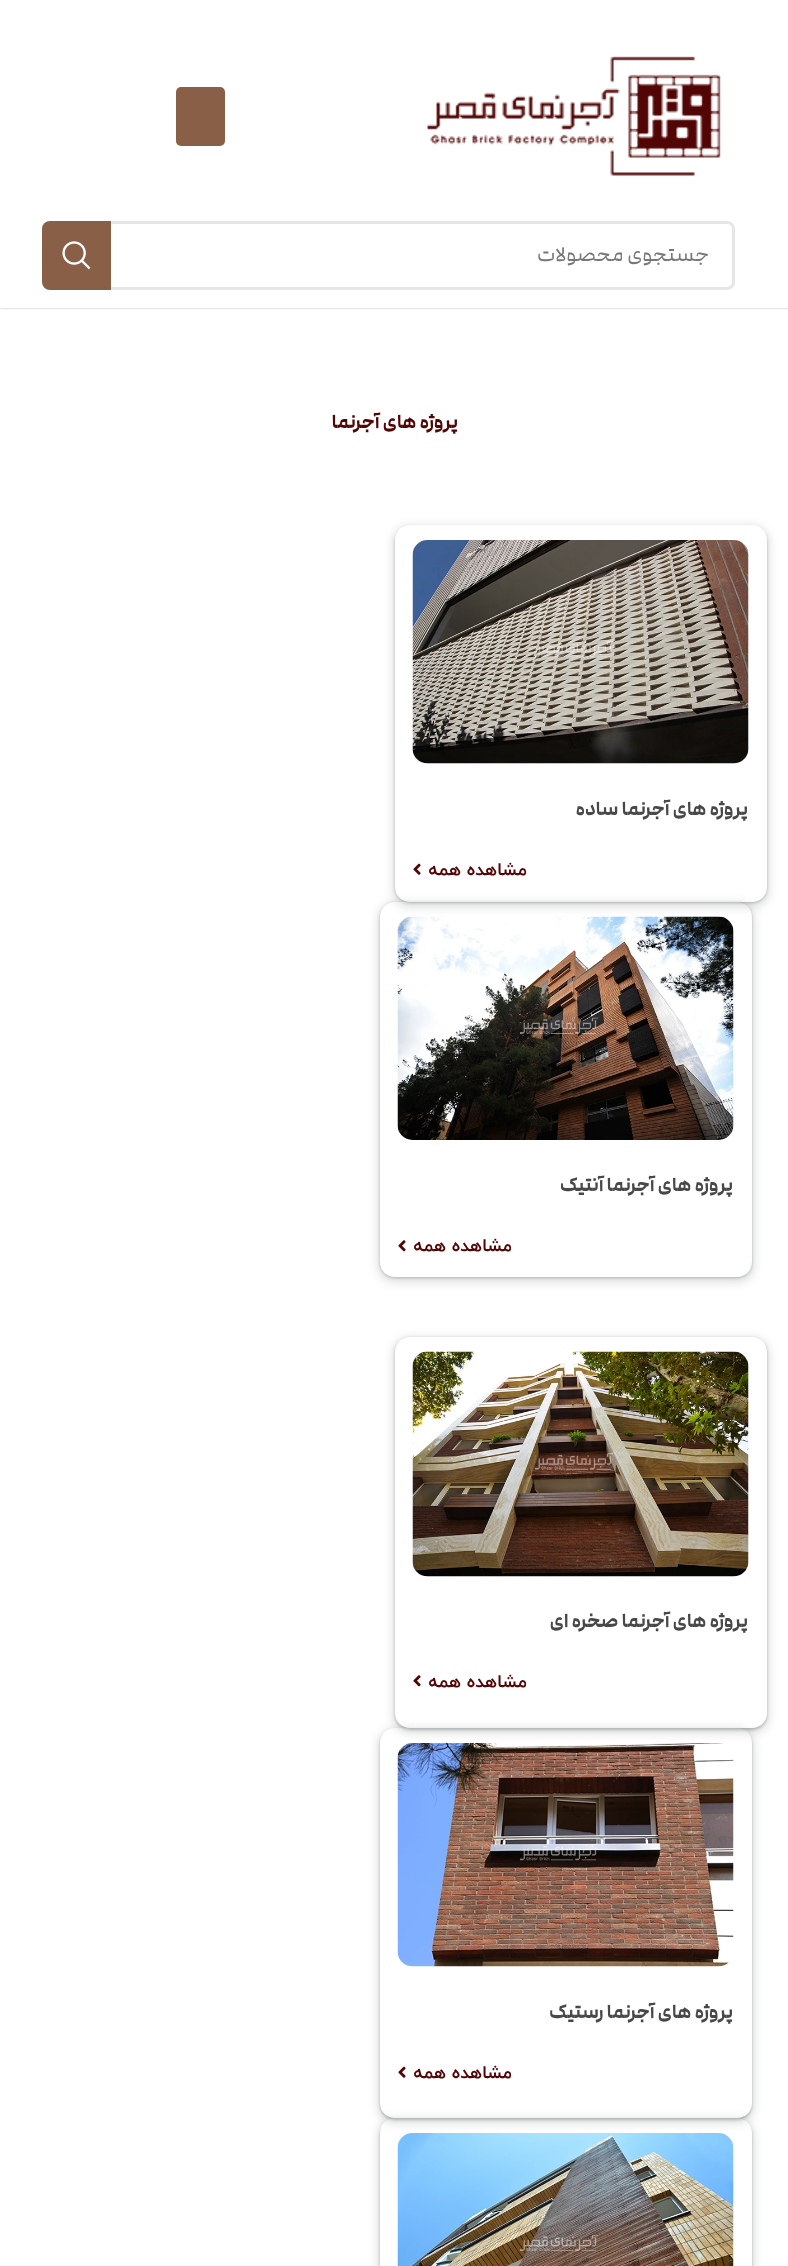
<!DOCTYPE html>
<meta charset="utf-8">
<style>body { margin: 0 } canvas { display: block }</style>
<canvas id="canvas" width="788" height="2266"></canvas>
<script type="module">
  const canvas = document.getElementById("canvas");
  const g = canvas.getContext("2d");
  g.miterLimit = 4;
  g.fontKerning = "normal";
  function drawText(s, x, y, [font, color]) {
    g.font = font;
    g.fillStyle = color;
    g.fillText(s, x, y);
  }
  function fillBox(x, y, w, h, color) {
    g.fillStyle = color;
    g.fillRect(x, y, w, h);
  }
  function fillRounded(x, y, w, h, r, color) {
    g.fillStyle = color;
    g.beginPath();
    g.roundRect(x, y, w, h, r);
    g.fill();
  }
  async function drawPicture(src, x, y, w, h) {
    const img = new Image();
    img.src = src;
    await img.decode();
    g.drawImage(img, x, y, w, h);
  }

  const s1 = ["21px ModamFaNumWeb", "#777777"];
  const s2 = ["bold 19.5px ModamFaNumWeb", "#510505"];
  const s3 = ["bold 19.5px ModamFaNumWeb", "#484848"];
  const s4 = ["bold 18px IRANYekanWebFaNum", "#510505"];

  fillBox(0, 0, 788, 2266, "#FFFFFF");
  g.save();
  g.beginPath();
  g.moveTo(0, 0);
  g.lineTo(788, 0);
  g.lineTo(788, 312);
  g.lineTo(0, 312);
  g.closePath();
  g.moveTo(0, 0);
  g.lineTo(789, 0);
  g.lineTo(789, 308);
  g.lineTo(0, 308);
  g.closePath();
  g.clip("evenodd");
  g.fillStyle = "rgba(0, 0, 0, 0.3)";
  g.filter = "blur(1px)";
  g.beginPath();
  g.rect(0, 0, 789, 308);
  g.fill();
  g.filter = "none";
  g.restore();
  await drawPicture("pic1.png", 427, 56, 294, 120);
  fillRounded(176, 87, 49, 59, 5, "#895F47");
  g.beginPath();
  g.roundRect(43.5, 222.5, 690, 66, 6.5);
  g.strokeStyle = "#E6E6E6";
  g.lineWidth = 3;
  g.stroke();
  g.direction = "rtl";
  drawText("جستجوی محصولات", 709, 261, s1);
  g.fillStyle = "#895F47";
  g.beginPath();
  g.roundRect(42, 221, 69, 69, [8, 0, 0, 8]);
  g.fill();
  await drawPicture("pic2.png", 62, 241, 29, 29);
  drawText("پروژه های آجرنما", 458, 428, s2);
  g.save();
  g.beginPath();
  g.moveTo(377, 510);
  g.lineTo(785, 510);
  g.lineTo(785, 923);
  g.lineTo(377, 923);
  g.closePath();
  g.moveTo(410, 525);
  g.lineTo(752, 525);
  g.bezierCurveTo(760.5, 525, 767, 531.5, 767, 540);
  g.lineTo(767, 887);
  g.bezierCurveTo(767, 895.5, 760.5, 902, 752, 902);
  g.lineTo(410, 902);
  g.bezierCurveTo(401.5, 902, 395, 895.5, 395, 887);
  g.lineTo(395, 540);
  g.bezierCurveTo(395, 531.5, 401.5, 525, 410, 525);
  g.closePath();
  g.clip("evenodd");
  g.fillStyle = "rgba(60, 64, 67, 0.15)";
  g.filter = "blur(4.5px)";
  g.beginPath();
  g.roundRect(392, 525, 378, 383, 18);
  g.fill();
  g.filter = "none";
  g.restore();
  g.save();
  g.beginPath();
  g.moveTo(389, 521);
  g.lineTo(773, 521);
  g.lineTo(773, 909);
  g.lineTo(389, 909);
  g.closePath();
  g.moveTo(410, 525);
  g.lineTo(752, 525);
  g.bezierCurveTo(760.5, 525, 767, 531.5, 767, 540);
  g.lineTo(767, 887);
  g.bezierCurveTo(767, 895.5, 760.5, 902, 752, 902);
  g.lineTo(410, 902);
  g.bezierCurveTo(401.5, 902, 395, 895.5, 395, 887);
  g.lineTo(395, 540);
  g.bezierCurveTo(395, 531.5, 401.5, 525, 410, 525);
  g.closePath();
  g.clip("evenodd");
  g.fillStyle = "rgba(60, 64, 67, 0.3)";
  g.filter = "blur(1.5px)";
  g.beginPath();
  g.roundRect(395, 527, 372, 376, 15);
  g.fill();
  g.filter = "none";
  g.restore();
  await drawPicture("pic3.png", 412, 540, 337, 224);
  drawText("پروژه های آجرنما ساده", 748, 815, s3);
  drawText("مشاهده همه", 527, 875, s4);
  await drawPicture("pic4.png", 413, 863, 8, 12);
  g.save();
  g.beginPath();
  g.moveTo(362, 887);
  g.lineTo(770, 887);
  g.lineTo(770, 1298);
  g.lineTo(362, 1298);
  g.closePath();
  g.moveTo(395, 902);
  g.lineTo(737, 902);
  g.bezierCurveTo(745.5, 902, 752, 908.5, 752, 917);
  g.lineTo(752, 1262);
  g.bezierCurveTo(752, 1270.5, 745.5, 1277, 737, 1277);
  g.lineTo(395, 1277);
  g.bezierCurveTo(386.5, 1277, 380, 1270.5, 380, 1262);
  g.lineTo(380, 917);
  g.bezierCurveTo(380, 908.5, 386.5, 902, 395, 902);
  g.closePath();
  g.clip("evenodd");
  g.fillStyle = "rgba(60, 64, 67, 0.15)";
  g.filter = "blur(4.5px)";
  g.beginPath();
  g.roundRect(377, 902, 378, 381, 18);
  g.fill();
  g.filter = "none";
  g.restore();
  g.save();
  g.beginPath();
  g.moveTo(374, 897);
  g.lineTo(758, 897);
  g.lineTo(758, 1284);
  g.lineTo(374, 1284);
  g.closePath();
  g.moveTo(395, 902);
  g.lineTo(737, 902);
  g.bezierCurveTo(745.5, 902, 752, 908.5, 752, 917);
  g.lineTo(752, 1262);
  g.bezierCurveTo(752, 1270.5, 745.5, 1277, 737, 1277);
  g.lineTo(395, 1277);
  g.bezierCurveTo(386.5, 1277, 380, 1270.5, 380, 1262);
  g.lineTo(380, 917);
  g.bezierCurveTo(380, 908.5, 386.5, 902, 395, 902);
  g.closePath();
  g.clip("evenodd");
  g.fillStyle = "rgba(60, 64, 67, 0.3)";
  g.filter = "blur(1.5px)";
  g.beginPath();
  g.roundRect(380, 903, 372, 375, 15);
  g.fill();
  g.filter = "none";
  g.restore();
  await drawPicture("pic5.png", 397, 916, 337, 224);
  drawText("پروژه های آجرنما آنتیک", 733, 1191, s3);
  drawText("مشاهده همه", 512, 1251, s4);
  await drawPicture("pic6.png", 398, 1240, 8, 12);
  g.save();
  g.beginPath();
  g.moveTo(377, 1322);
  g.lineTo(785, 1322);
  g.lineTo(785, 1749);
  g.lineTo(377, 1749);
  g.closePath();
  g.moveTo(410, 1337);
  g.lineTo(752, 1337);
  g.bezierCurveTo(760.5, 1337, 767, 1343.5, 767, 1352);
  g.lineTo(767, 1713);
  g.bezierCurveTo(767, 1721.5, 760.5, 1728, 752, 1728);
  g.lineTo(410, 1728);
  g.bezierCurveTo(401.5, 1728, 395, 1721.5, 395, 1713);
  g.lineTo(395, 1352);
  g.bezierCurveTo(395, 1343.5, 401.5, 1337, 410, 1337);
  g.closePath();
  g.clip("evenodd");
  g.fillStyle = "rgba(60, 64, 67, 0.15)";
  g.filter = "blur(4.5px)";
  g.beginPath();
  g.roundRect(392, 1337, 378, 397, 18);
  g.fill();
  g.filter = "none";
  g.restore();
  g.save();
  g.beginPath();
  g.moveTo(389, 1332);
  g.lineTo(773, 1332);
  g.lineTo(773, 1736);
  g.lineTo(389, 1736);
  g.closePath();
  g.moveTo(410, 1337);
  g.lineTo(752, 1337);
  g.bezierCurveTo(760.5, 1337, 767, 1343.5, 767, 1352);
  g.lineTo(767, 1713);
  g.bezierCurveTo(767, 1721.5, 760.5, 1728, 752, 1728);
  g.lineTo(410, 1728);
  g.bezierCurveTo(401.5, 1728, 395, 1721.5, 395, 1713);
  g.lineTo(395, 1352);
  g.bezierCurveTo(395, 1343.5, 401.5, 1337, 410, 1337);
  g.closePath();
  g.clip("evenodd");
  g.fillStyle = "rgba(60, 64, 67, 0.3)";
  g.filter = "blur(1.5px)";
  g.beginPath();
  g.roundRect(395, 1338, 372, 392, 15);
  g.fill();
  g.filter = "none";
  g.restore();
  await drawPicture("pic7.png", 412, 1351, 337, 226);
  drawText("پروژه های آجرنما صخره ای", 748, 1627, s3);
  drawText("مشاهده همه", 527, 1687, s4);
  await drawPicture("pic6.png", 413, 1675, 8, 12);
  g.save();
  g.beginPath();
  g.moveTo(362, 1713);
  g.lineTo(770, 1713);
  g.lineTo(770, 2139);
  g.lineTo(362, 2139);
  g.closePath();
  g.moveTo(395, 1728);
  g.lineTo(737, 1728);
  g.bezierCurveTo(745.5, 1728, 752, 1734.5, 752, 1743);
  g.lineTo(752, 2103);
  g.bezierCurveTo(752, 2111.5, 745.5, 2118, 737, 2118);
  g.lineTo(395, 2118);
  g.bezierCurveTo(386.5, 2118, 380, 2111.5, 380, 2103);
  g.lineTo(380, 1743);
  g.bezierCurveTo(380, 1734.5, 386.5, 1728, 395, 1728);
  g.closePath();
  g.clip("evenodd");
  g.fillStyle = "rgba(60, 64, 67, 0.15)";
  g.filter = "blur(4.5px)";
  g.beginPath();
  g.roundRect(377, 1728, 378, 396, 18);
  g.fill();
  g.filter = "none";
  g.restore();
  g.save();
  g.beginPath();
  g.moveTo(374, 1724);
  g.lineTo(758, 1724);
  g.lineTo(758, 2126);
  g.lineTo(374, 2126);
  g.closePath();
  g.moveTo(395, 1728);
  g.lineTo(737, 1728);
  g.bezierCurveTo(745.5, 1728, 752, 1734.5, 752, 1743);
  g.lineTo(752, 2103);
  g.bezierCurveTo(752, 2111.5, 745.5, 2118, 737, 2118);
  g.lineTo(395, 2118);
  g.bezierCurveTo(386.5, 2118, 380, 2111.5, 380, 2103);
  g.lineTo(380, 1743);
  g.bezierCurveTo(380, 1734.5, 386.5, 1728, 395, 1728);
  g.closePath();
  g.clip("evenodd");
  g.fillStyle = "rgba(60, 64, 67, 0.3)";
  g.filter = "blur(1.5px)";
  g.beginPath();
  g.roundRect(380, 1730, 372, 390, 15);
  g.fill();
  g.filter = "none";
  g.restore();
  await drawPicture("pic8.png", 397, 1743, 337, 224);
  drawText("پروژه های آجرنما رستیک", 733, 2018, s3);
  drawText("مشاهده همه", 512, 2078, s4);
  await drawPicture("pic4.png", 398, 2066, 8, 12);
  g.save();
  g.beginPath();
  g.moveTo(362, 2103);
  g.lineTo(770, 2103);
  g.lineTo(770, 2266);
  g.lineTo(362, 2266);
  g.closePath();
  g.moveTo(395, 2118);
  g.lineTo(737, 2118);
  g.bezierCurveTo(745.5, 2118, 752, 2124.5, 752, 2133);
  g.lineTo(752, 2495);
  g.bezierCurveTo(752, 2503.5, 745.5, 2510, 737, 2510);
  g.lineTo(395, 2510);
  g.bezierCurveTo(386.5, 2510, 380, 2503.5, 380, 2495);
  g.lineTo(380, 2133);
  g.bezierCurveTo(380, 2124.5, 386.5, 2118, 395, 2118);
  g.closePath();
  g.clip("evenodd");
  g.fillStyle = "rgba(60, 64, 67, 0.15)";
  g.filter = "blur(4.5px)";
  g.beginPath();
  g.roundRect(377, 2118, 378, 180, 18);
  g.fill();
  g.filter = "none";
  g.restore();
  g.save();
  g.beginPath();
  g.moveTo(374, 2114);
  g.lineTo(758, 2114);
  g.lineTo(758, 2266);
  g.lineTo(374, 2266);
  g.closePath();
  g.moveTo(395, 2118);
  g.lineTo(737, 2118);
  g.bezierCurveTo(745.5, 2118, 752, 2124.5, 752, 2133);
  g.lineTo(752, 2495);
  g.bezierCurveTo(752, 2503.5, 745.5, 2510, 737, 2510);
  g.lineTo(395, 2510);
  g.bezierCurveTo(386.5, 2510, 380, 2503.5, 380, 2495);
  g.lineTo(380, 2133);
  g.bezierCurveTo(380, 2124.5, 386.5, 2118, 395, 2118);
  g.closePath();
  g.clip("evenodd");
  g.fillStyle = "rgba(60, 64, 67, 0.3)";
  g.filter = "blur(1.5px)";
  g.beginPath();
  g.roundRect(380, 2120, 372, 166, 15);
  g.fill();
  g.filter = "none";
  g.restore();
  await drawPicture("pic9.png", 397, 2133, 337, 133);
</script>
